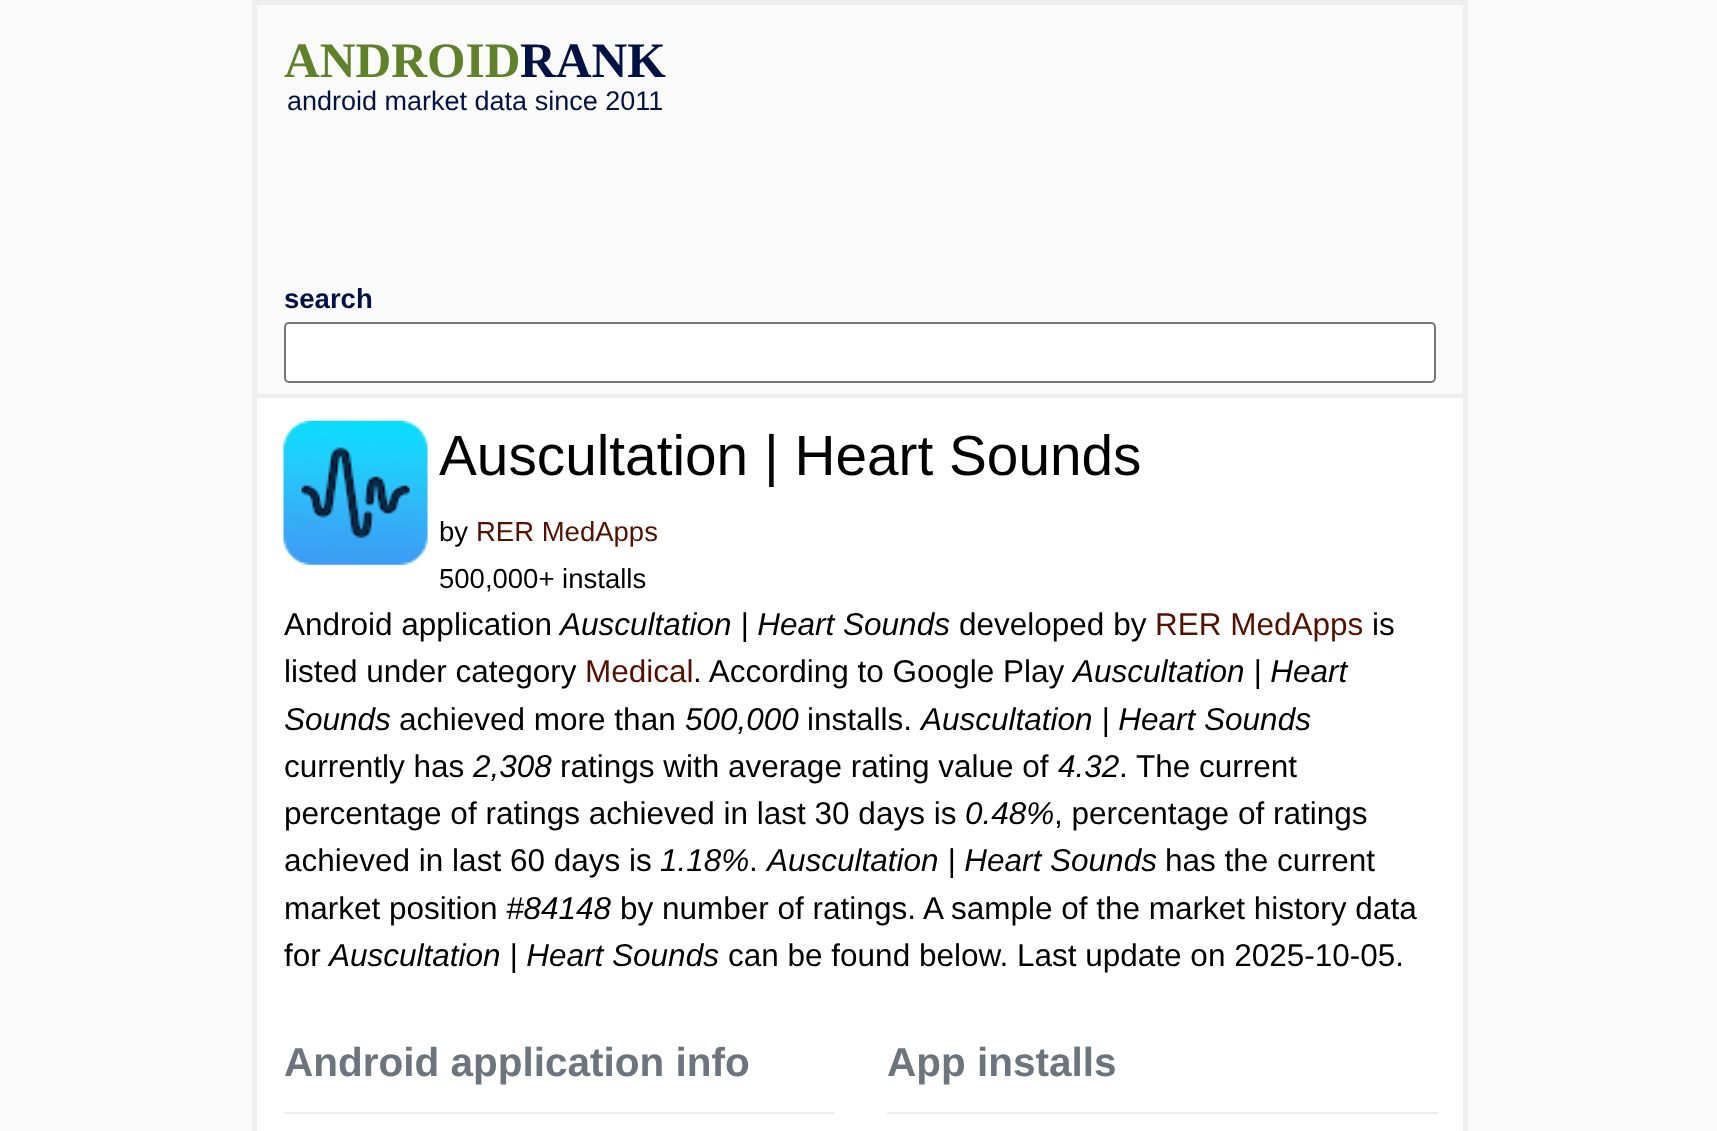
<!DOCTYPE html>
<meta charset="utf-8">
<style>body { margin: 0 } canvas { display: block }</style>
<canvas id="canvas" width="1717" height="1131"></canvas>
<script type="module">
  const canvas = document.getElementById("canvas");
  const g = canvas.getContext("2d");
  g.miterLimit = 4;
  g.fontKerning = "normal";
  function drawText(s, x, y, [font, color]) {
    g.font = font;
    g.fillStyle = color;
    g.fillText(s, x, y);
  }
  function fillBox(x, y, w, h, color) {
    g.fillStyle = color;
    g.fillRect(x, y, w, h);
  }
  async function drawPicture(src, x, y, w, h) {
    const img = new Image();
    img.src = src;
    await img.decode();
    g.drawImage(img, x, y, w, h);
  }

  const s1 = ["bold 49.5px Liberation Serif", "#5F812A"];
  const s2 = ["bold 49.5px Liberation Serif", "#001144"];
  const s3 = ["27px Liberation Sans", "#001144"];
  const s4 = ["bold 27.5px Liberation Sans", "#001144"];
  const s5 = ["56.75px Liberation Sans", "#000000"];
  const s6 = ["27.5px Liberation Sans", "#000000"];
  const s7 = ["27.5px Liberation Sans", "#551100"];
  const s8 = ["31.5px Liberation Sans", "#000000"];
  const s9 = ["italic 31.5px Liberation Sans", "#000000"];
  const s10 = ["31.5px Liberation Sans", "#551100"];
  const s11 = ["bold 40.5px Liberation Sans", "#6C757D"];

  fillBox(0, 0, 1717, 1131, "#FAFAFA");
  fillBox(1463, 0, 5, 1131, "#EEEEEE");
  fillBox(252, 0, 5, 1131, "#EEEEEE");
  fillBox(257, 0, 1206, 5, "#EEEEEE");
  fillBox(257, 394, 1206, 4, "#EEEEEE");
  drawText("ANDROID", 284, 77, s1);
  drawText("RANK", 520, 77, s2);
  drawText("android market data since 2011", 287, 110, s3);
  drawText("search", 284, 308, s4);
  g.fillStyle = "#FFFFFF";
  g.beginPath();
  g.roundRect(285, 323, 1150, 59, 4);
  g.fill();
  g.strokeStyle = "#767676";
  g.lineWidth = 2;
  g.stroke();
  fillBox(257, 398, 1206, 733, "#FFFFFF");
  await drawPicture("pic1.png", 283, 420, 145, 145);
  drawText("Auscultation | Heart Sounds", 439, 475, s5);
  drawText("by", 439, 541, s6);
  drawText("RER MedApps", 476, 541, s7);
  drawText("500,000+ installs", 439, 588, s6);
  drawText("Android application", 284, 635, s8);
  drawText("Auscultation | Heart Sounds", 560, 635, s9);
  drawText("developed by", 959, 635, s8);
  drawText("RER MedApps", 1155, 635, s10);
  drawText("is", 1372, 635, s8);
  drawText("listed under category", 284, 682, s8);
  drawText("Medical", 585, 682, s10);
  drawText(". According to Google Play", 693, 682, s8);
  drawText("Auscultation | Heart", 1073, 682, s9);
  drawText("Sounds", 284, 730, s9);
  drawText("achieved more than", 399, 730, s8);
  drawText("500,000", 685, 730, s9);
  drawText("installs.", 807, 730, s8);
  drawText("Auscultation | Heart Sounds", 921, 730, s9);
  drawText("currently has", 284, 777, s8);
  drawText("2,308", 473, 777, s9);
  drawText("ratings with average rating value of", 560, 777, s8);
  drawText("4.32", 1058, 777, s9);
  drawText(". The current", 1119, 777, s8);
  drawText("percentage of ratings achieved in last 30 days is", 284, 824, s8);
  drawText("0.48%", 965, 824, s9);
  drawText(", percentage of ratings", 1054, 824, s8);
  drawText("achieved in last 60 days is", 284, 871, s8);
  drawText("1.18%", 660, 871, s9);
  drawText(".", 749, 871, s8);
  drawText("Auscultation | Heart Sounds", 767, 871, s9);
  drawText("has the current", 1165, 871, s8);
  drawText("market position", 284, 919, s8);
  drawText("#84148", 506, 919, s9);
  drawText("by number of ratings. A sample of the market history data", 620, 919, s8);
  drawText("for", 284, 966, s8);
  drawText("Auscultation | Heart Sounds", 329, 966, s9);
  drawText("can be found below. Last update on 2025-10-05.", 728, 966, s8);
  drawText("Android application info", 284, 1076, s11);
  fillBox(284, 1112, 551, 2, "#EEEEEE");
  drawText("App installs", 887, 1076, s11);
  fillBox(887, 1112, 551, 2, "#EEEEEE");
</script>
